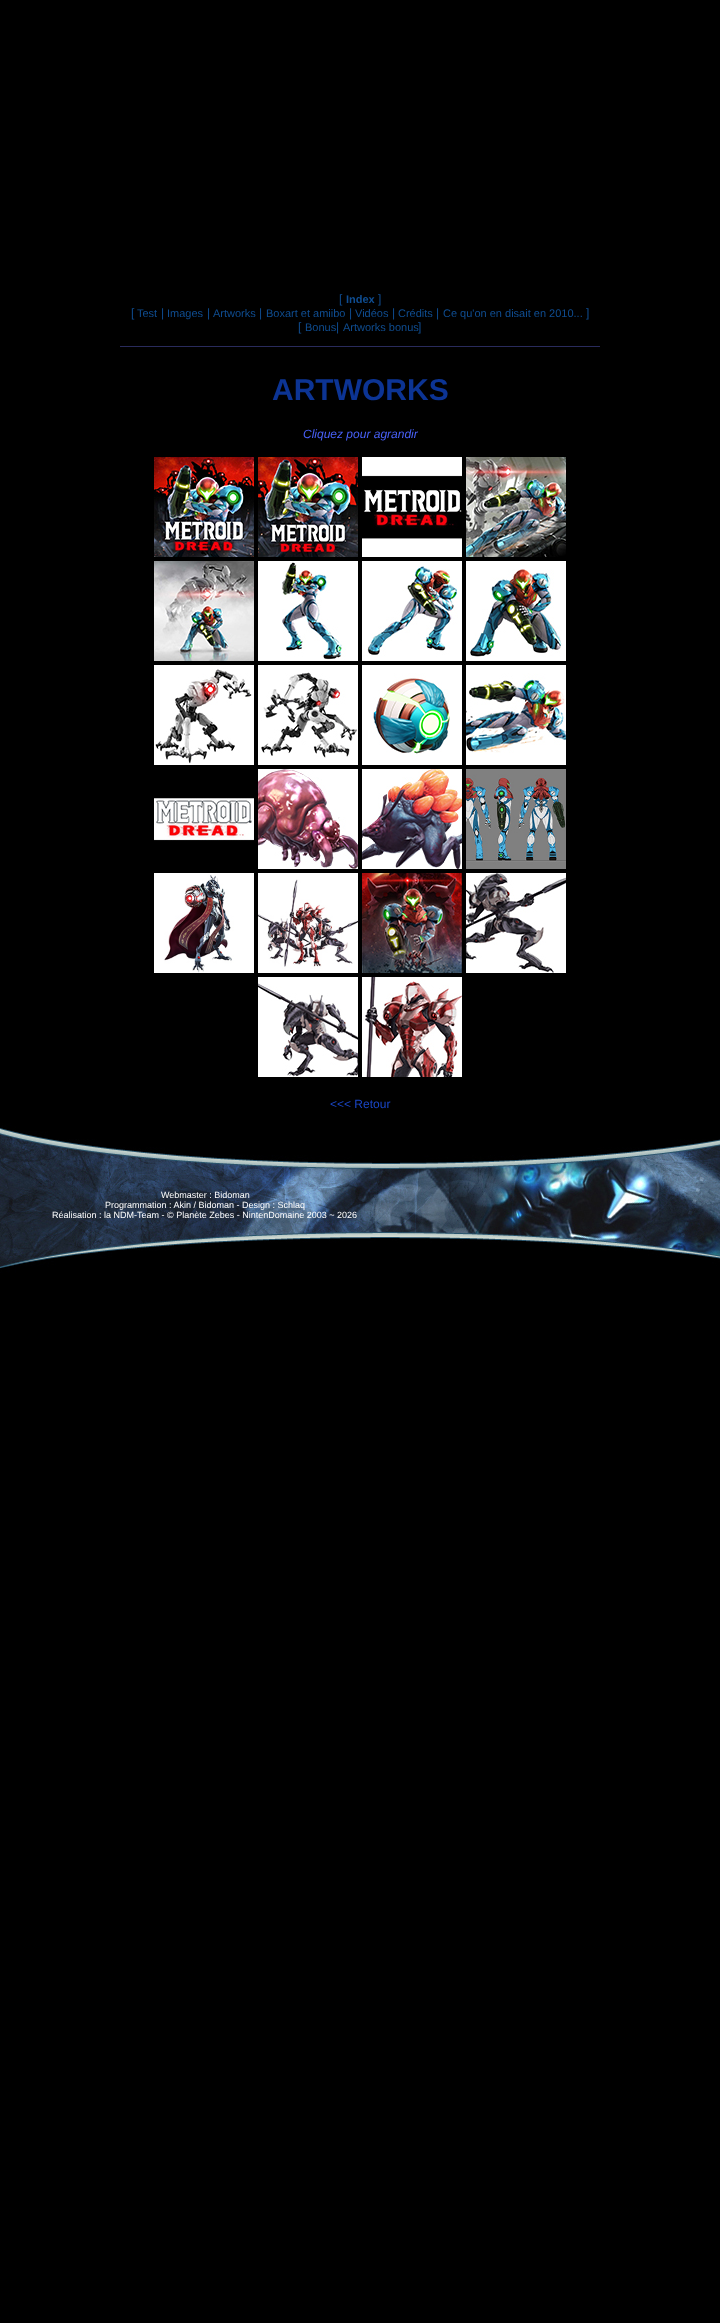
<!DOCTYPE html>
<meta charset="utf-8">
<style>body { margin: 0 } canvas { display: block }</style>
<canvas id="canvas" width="720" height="2323"></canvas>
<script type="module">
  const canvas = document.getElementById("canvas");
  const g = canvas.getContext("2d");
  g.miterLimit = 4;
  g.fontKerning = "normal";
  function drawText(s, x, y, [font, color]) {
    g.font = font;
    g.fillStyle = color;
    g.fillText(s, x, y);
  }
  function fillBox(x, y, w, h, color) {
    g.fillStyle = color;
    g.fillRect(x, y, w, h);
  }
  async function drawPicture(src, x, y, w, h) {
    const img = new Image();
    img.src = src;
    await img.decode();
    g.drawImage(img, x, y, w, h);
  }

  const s1 = ["12px Liberation Sans", "#0F4D91"];
  const s2 = ["bold 11px Liberation Sans", "#0F4D91"];
  const s3 = ["11px Liberation Sans", "#0F4D91"];
  const s4 = ["bold 30px Liberation Sans", "#0C3494"];
  const s5 = ["italic 12px Liberation Sans", "#4860F7"];
  const s6 = ["12px Liberation Sans", "#1A46C6"];
  const s7 = ["9px Liberation Sans", "#FFFFFF"];

  fillBox(0, 0, 720, 2323, "#000000");
  drawText("[", 339, 303, s1);
  drawText("Index", 346, 303, s2);
  drawText("]", 378, 303, s1);
  drawText("[", 131, 317, s1);
  drawText("Test", 137, 317, s3);
  drawText("|", 161, 317, s1);
  drawText("Images", 167, 317, s3);
  drawText("|", 207, 317, s1);
  drawText("Artworks", 213, 317, s3);
  drawText("|", 259, 317, s1);
  drawText("Boxart et amiibo", 266, 317, s3);
  drawText("|", 349, 317, s1);
  drawText("Vidéos", 355, 317, s3);
  drawText("|", 392, 317, s1);
  drawText("Crédits", 398, 317, s3);
  drawText("|", 436, 317, s1);
  drawText("Ce qu'on en disait en 2010...", 443, 317, s3);
  drawText("]", 586, 317, s1);
  drawText("[", 298, 331, s1);
  drawText("Bonus", 305, 331, s3);
  drawText("|", 336, 331, s1);
  drawText("Artworks bonus", 343, 331, s3);
  drawText("]", 418, 331, s1);
  fillBox(120, 346, 480, 1, "#292B5C");
  drawText("ARTWORKS", 272, 400, s4);
  drawText("Cliquez pour agrandir", 303, 438, s5);
  await drawPicture("pic1.png", 154, 457, 100, 100);
  await drawPicture("pic2.png", 258, 457, 100, 100);
  await drawPicture("pic3.png", 362, 457, 100, 100);
  await drawPicture("pic4.png", 466, 457, 100, 100);
  await drawPicture("pic5.png", 154, 561, 100, 100);
  await drawPicture("pic6.png", 258, 561, 100, 100);
  await drawPicture("pic7.png", 362, 561, 100, 100);
  await drawPicture("pic8.png", 466, 561, 100, 100);
  await drawPicture("pic9.png", 154, 665, 100, 100);
  await drawPicture("pic10.png", 258, 665, 100, 100);
  await drawPicture("pic11.png", 362, 665, 100, 100);
  await drawPicture("pic12.png", 466, 665, 100, 100);
  await drawPicture("pic13.png", 154, 798, 100, 43);
  await drawPicture("pic14.png", 258, 769, 100, 100);
  await drawPicture("pic15.png", 362, 769, 100, 100);
  await drawPicture("pic16.png", 466, 769, 100, 100);
  await drawPicture("pic17.png", 154, 873, 100, 100);
  await drawPicture("pic18.png", 258, 873, 100, 100);
  await drawPicture("pic19.png", 362, 873, 100, 100);
  await drawPicture("pic20.png", 466, 873, 100, 100);
  await drawPicture("pic21.png", 258, 977, 100, 100);
  await drawPicture("pic22.png", 362, 977, 100, 100);
  drawText("<<< Retour", 330, 1108, s6);
  await drawPicture("pic23.png", 0, 1123, 720, 150);
  drawText("Webmaster : Bidoman", 161, 1198, s7);
  drawText("Programmation : Akin / Bidoman - Design : Schlaq", 105, 1208, s7);
  drawText("Réalisation : la NDM-Team - © Planète Zebes - NintenDomaine 2003 ~ 2026", 52, 1218, s7);
</script>
